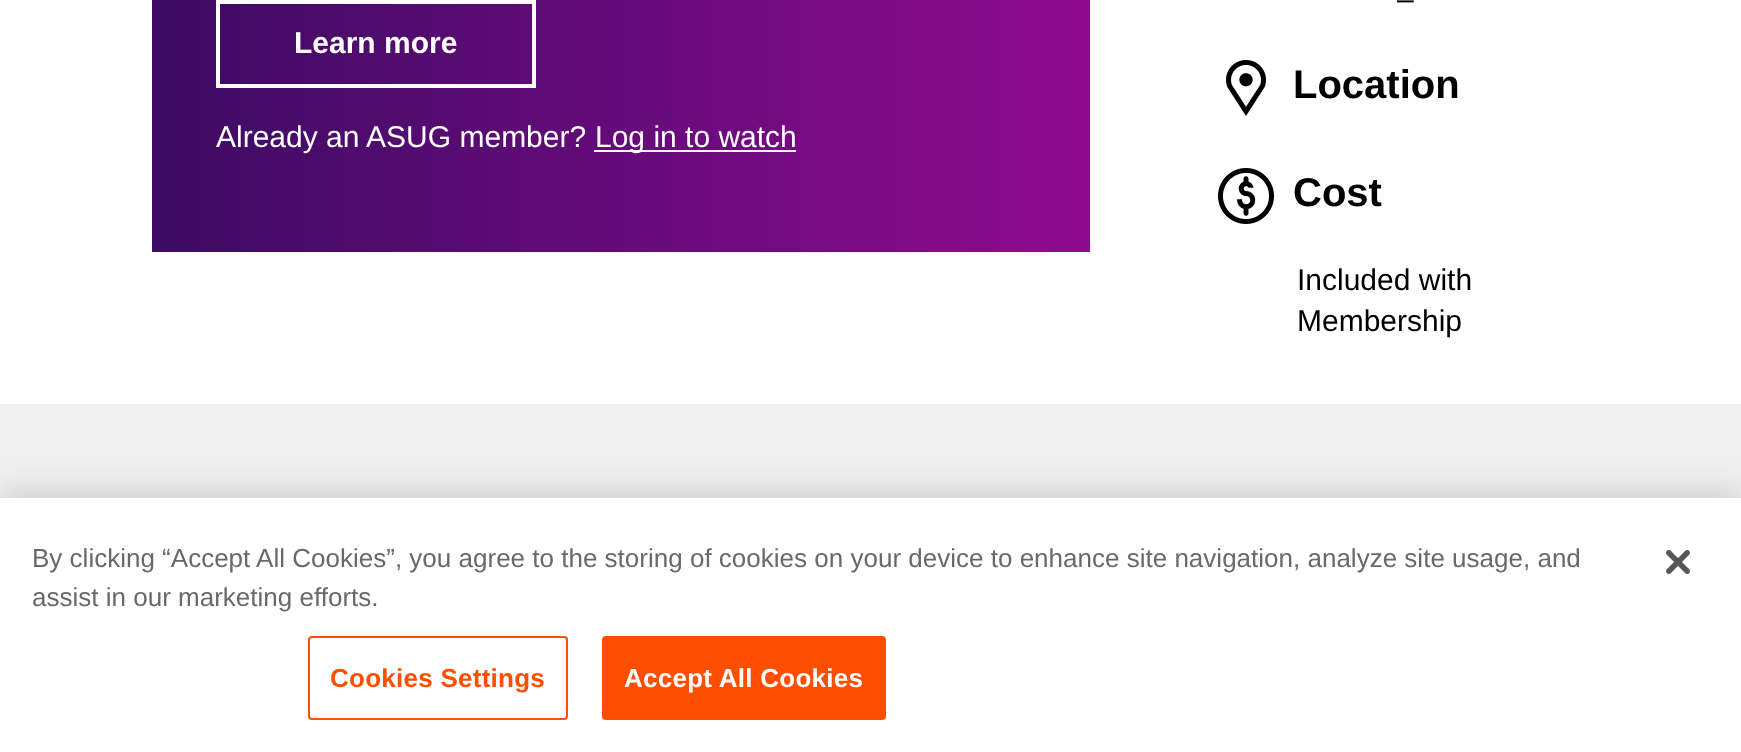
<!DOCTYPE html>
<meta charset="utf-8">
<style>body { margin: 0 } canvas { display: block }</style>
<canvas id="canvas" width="1741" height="752"></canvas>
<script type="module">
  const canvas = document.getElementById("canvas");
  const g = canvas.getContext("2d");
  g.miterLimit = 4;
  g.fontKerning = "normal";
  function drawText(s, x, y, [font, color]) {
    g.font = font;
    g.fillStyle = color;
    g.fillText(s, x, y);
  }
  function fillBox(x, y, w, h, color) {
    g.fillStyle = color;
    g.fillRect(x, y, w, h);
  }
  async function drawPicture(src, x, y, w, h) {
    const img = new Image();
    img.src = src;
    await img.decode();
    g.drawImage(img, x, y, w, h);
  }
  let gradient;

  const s1 = ["bold 30px Liberation Sans", "#FFFFFF"];
  const s2 = ["30px Liberation Sans", "#FFFFFF"];
  const s3 = ["30px Liberation Sans", "#000000"];
  const s4 = ["bold 40px Liberation Sans", "#000000"];
  const s5 = ["26.02px Liberation Sans", "#696969"];
  const s6 = ["bold 26.02px Liberation Sans", "#FF4E00"];
  const s7 = ["bold 26.02px Liberation Sans", "#FFFFFF"];

  fillBox(0, 0, 1741, 752, "#FFFFFF");
  gradient = g.createLinearGradient(152, -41, 1090, -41);
  gradient.addColorStop(0, "#3C0B63");
  gradient.addColorStop(1, "#8F0B90");
  g.fillStyle = gradient;
  g.fillRect(152, 0, 938, 252);
  g.strokeStyle = "#FFFFFF";
  g.lineWidth = 4;
  g.strokeRect(218, 2, 316, 84);
  drawText("Learn more", 294, 53, s1);
  drawText("Already an ASUG member?", 216, 147, s2);
  fillBox(594, 150, 202, 2, "#FFFFFF");
  drawText("Log in to watch", 595, 147, s2);
  drawText("–", 1397, 9, s3);
  await drawPicture("pic1.png", 1226, 60, 40, 56);
  drawText("Location", 1293, 98, s4);
  await drawPicture("pic2.png", 1218, 168, 56, 56);
  drawText("Cost", 1293, 206, s4);
  drawText("Included with", 1297, 290, s3);
  drawText("Membership", 1297, 331, s3);
  fillBox(0, 404, 1741, 94, "#F0F0F0");
  g.fillStyle = "rgba(0, 0, 0, 0.2)";
  g.filter = "blur(18px)";
  g.beginPath();
  g.rect(0, 498, 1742, 254);
  g.fill();
  g.filter = "none";
  fillBox(0, 498, 1741, 254, "#FFFFFF");
  drawText("By clicking “Accept All Cookies”, you agree to the storing of cookies on your device to enhance site navigation, analyze site usage, and", 32, 567, s5);
  drawText("assist in our marketing efforts.", 32, 606, s5);
  g.beginPath();
  g.roundRect(309, 637, 258, 82, 3);
  g.strokeStyle = "#FF4E00";
  g.lineWidth = 2;
  g.stroke();
  g.letterSpacing = "0.25px";
  drawText("Cookies Settings", 330, 687, s6);
  g.beginPath();
  g.roundRect(603, 637, 282, 82, 3);
  g.fill();
  g.stroke();
  drawText("Accept All Cookies", 624, 687, s7);
  await drawPicture("pic3.png", 1666, 550, 24, 24);
</script>
